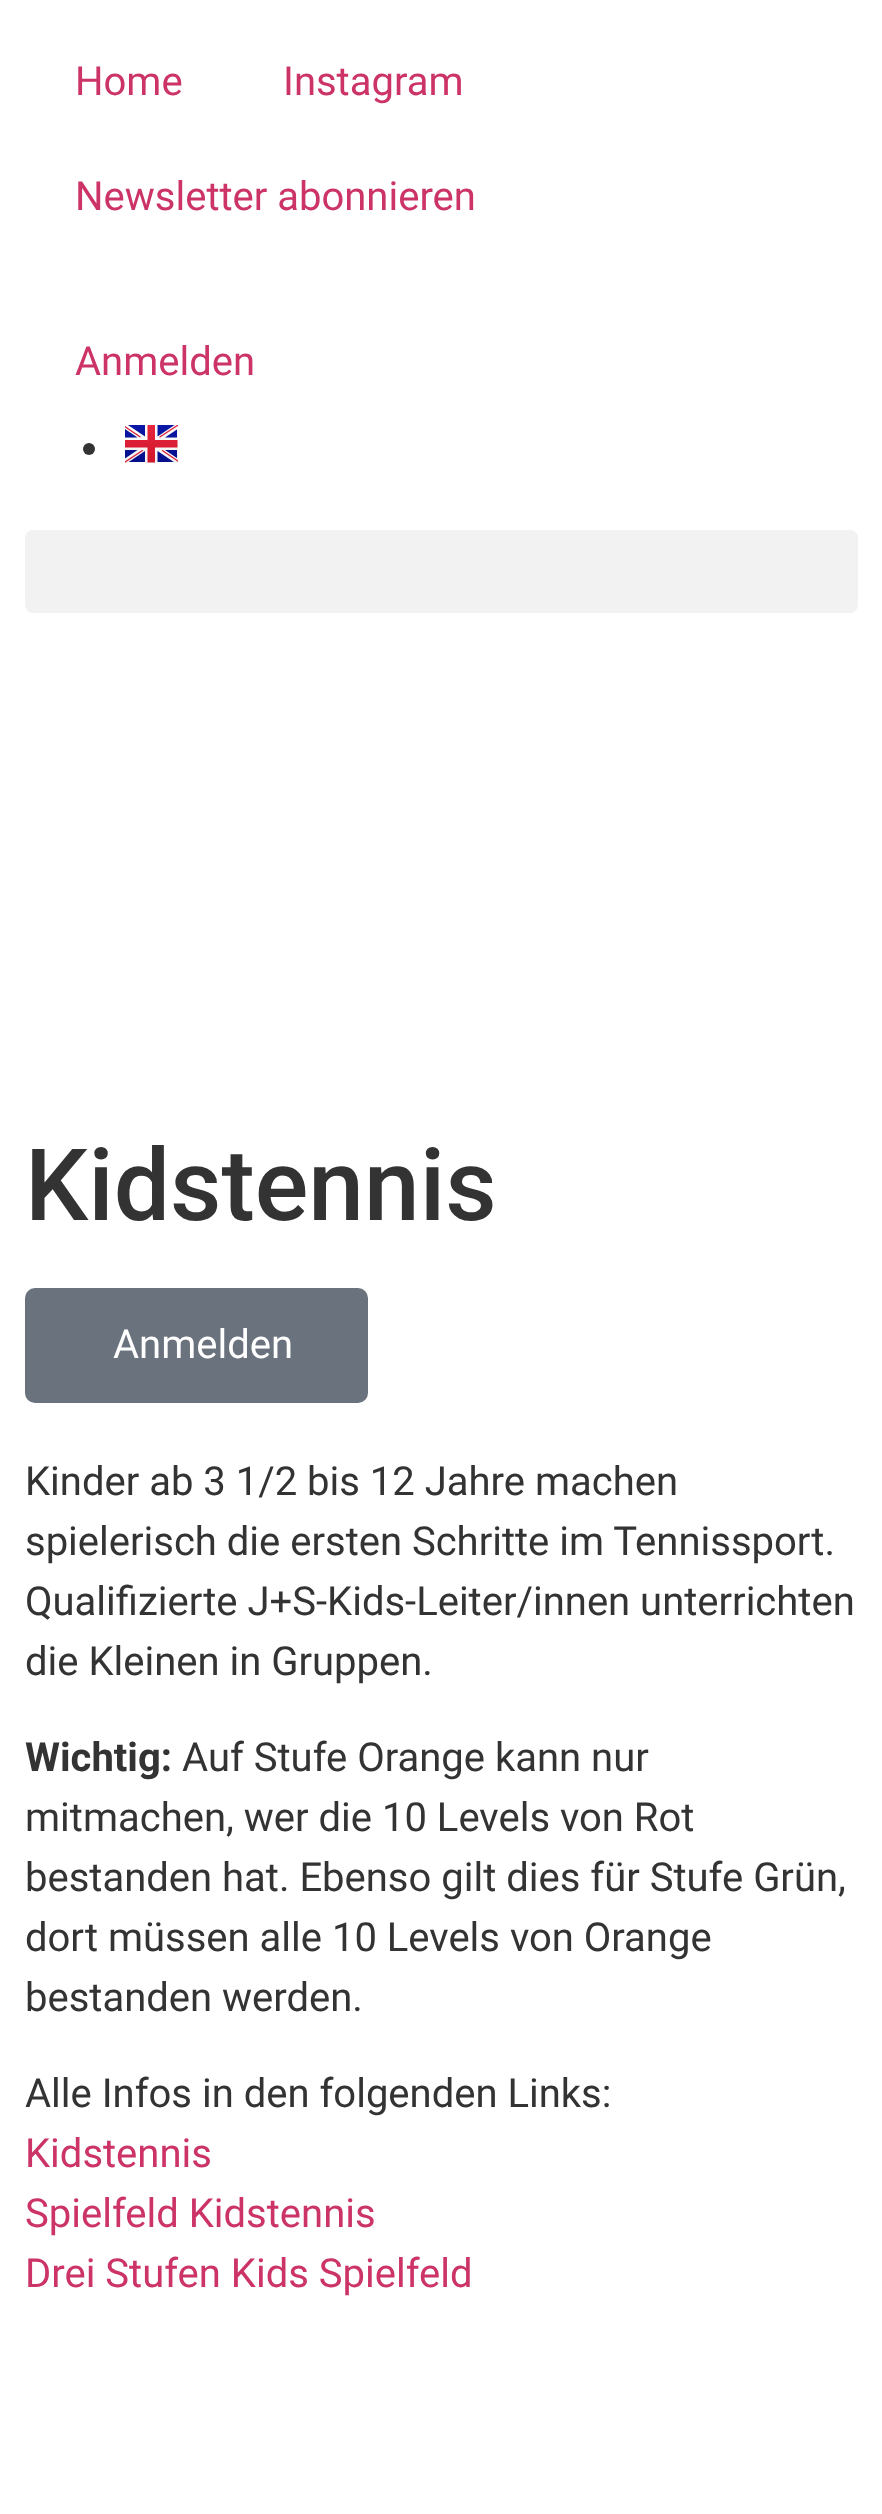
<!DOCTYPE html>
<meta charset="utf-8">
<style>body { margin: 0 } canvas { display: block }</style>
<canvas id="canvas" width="882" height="2514"></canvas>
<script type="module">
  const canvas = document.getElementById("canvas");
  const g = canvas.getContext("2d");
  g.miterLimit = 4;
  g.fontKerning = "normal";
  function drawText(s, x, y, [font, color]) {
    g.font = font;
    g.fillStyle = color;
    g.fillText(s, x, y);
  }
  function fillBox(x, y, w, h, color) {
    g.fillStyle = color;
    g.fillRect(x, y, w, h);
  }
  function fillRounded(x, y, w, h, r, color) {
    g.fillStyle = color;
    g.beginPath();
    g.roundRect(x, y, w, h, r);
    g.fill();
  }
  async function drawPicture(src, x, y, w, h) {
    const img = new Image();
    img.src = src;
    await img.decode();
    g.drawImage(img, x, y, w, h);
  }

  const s1 = ["40px Roboto", "#CC3366"];
  const s2 = ["500 100px Roboto", "#333333"];
  const s3 = ["40px Roboto", "#FFFFFF"];
  const s4 = ["40px Roboto", "#333333"];
  const s5 = ["bold 40px Roboto", "#333333"];

  fillBox(0, 0, 882, 2514, "#FFFFFF");
  drawText("Home", 75, 95, s1);
  drawText("Instagram", 283, 95, s1);
  drawText("Newsletter abonnieren", 75, 210, s1);
  drawText("Anmelden", 75, 375, s1);
  g.fillStyle = "#333333";
  g.beginPath();
  g.arc(89, 449, 6, 0, Math.PI * 2);
  g.fill();
  await drawPicture("pic1.png", 125, 425, 53, 38);
  fillRounded(25, 530, 833, 83, 8, "#F2F2F2");
  drawText("Kidstennis", 25, 1220, s2);
  fillRounded(25, 1288, 343, 115, 10, "#69727D");
  drawText("Anmelden", 113, 1358, s3);
  drawText("Kinder ab 3 1/2 bis 12 Jahre machen", 25, 1495, s4);
  drawText("spielerisch die ersten Schritte im Tennissport.", 25, 1555, s4);
  drawText("Qualifizierte J+S-Kids-Leiter/innen unterrichten", 25, 1615, s4);
  drawText("die Kleinen in Gruppen.", 25, 1675, s4);
  drawText("Wichtig:", 25, 1771, s5);
  drawText("Auf Stufe Orange kann nur", 182, 1771, s4);
  drawText("mitmachen, wer die 10 Levels von Rot", 25, 1831, s4);
  drawText("bestanden hat. Ebenso gilt dies für Stufe Grün,", 25, 1891, s4);
  drawText("dort müssen alle 10 Levels von Orange", 25, 1951, s4);
  drawText("bestanden werden.", 25, 2011, s4);
  drawText("Alle Infos in den folgenden Links:", 25, 2107, s4);
  drawText("Kidstennis", 25, 2167, s1);
  drawText("Spielfeld Kidstennis", 25, 2227, s1);
  drawText("Drei Stufen Kids Spielfeld", 25, 2287, s1);
</script>
